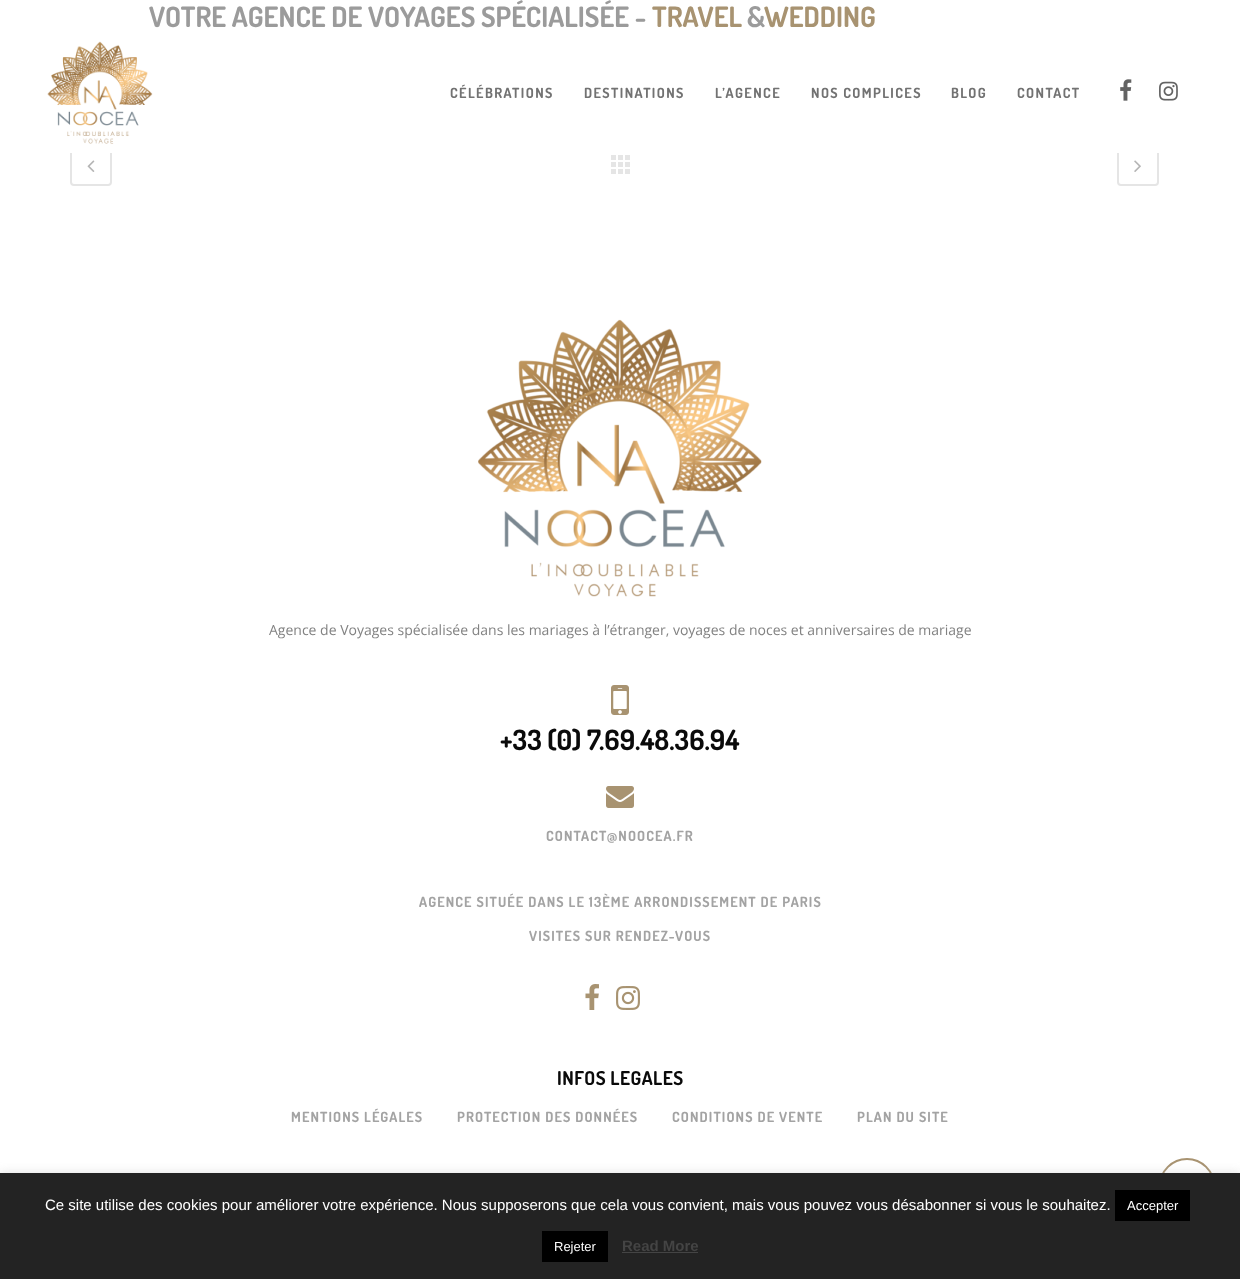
<!DOCTYPE html>
<meta charset="utf-8">
<style>body { margin: 0 } canvas { display: block }</style>
<canvas id="canvas" width="1240" height="1279"></canvas>
<script type="module">
  const canvas = document.getElementById("canvas");
  const g = canvas.getContext("2d");
  g.miterLimit = 4;
  g.fontKerning = "normal";
  function drawText(s, x, y, [font, color]) {
    g.font = font;
    g.fillStyle = color;
    g.fillText(s, x, y);
  }
  function fillBox(x, y, w, h, color) {
    g.fillStyle = color;
    g.fillRect(x, y, w, h);
  }
  async function drawPicture(src, x, y, w, h) {
    const img = new Image();
    img.src = src;
    await img.decode();
    g.drawImage(img, x, y, w, h);
  }

  const s1 = ["bold 28px Dosis", "#9B9B9B"];
  const s2 = ["bold 28px Dosis", "#A89371"];
  const s3 = ["bold 14px Dosis", "#727272"];
  const s4 = ["14px Open Sans", "#828282"];
  const s5 = ["bold 28px Dosis", "#0A0A0A"];
  const s6 = ["bold 14px Dosis", "#A3A3A3"];
  const s7 = ["bold 19px Dosis", "#0A0A0A"];
  const s8 = ["15px Liberation Sans", "#FFFFFF"];
  const s9 = ["13px Liberation Sans", "#FFFFFF"];
  const s10 = ["bold 15px Liberation Sans", "#444444"];

  fillBox(0, 0, 1240, 1279, "#FFFFFF");
  drawText("VOTRE AGENCE DE VOYAGES SPÉCIALISÉE -", 149, 27, s1);
  drawText("TRAVEL", 652, 27, s2);
  drawText("&", 747, 27, s1);
  drawText("WEDDING", 764, 27, s2);
  g.beginPath();
  g.roundRect(71, 145, 40, 40, 3);
  g.strokeStyle = "#E5E5E5";
  g.lineWidth = 2;
  g.stroke();
  g.beginPath();
  g.roundRect(1118, 145, 40, 40, 3);
  g.stroke();
  fillBox(70, 144, 1089, 9, "#FFFFFF");
  await drawPicture("pic1.png", 47, 41, 106, 103);
  g.letterSpacing = "1.4px";
  drawText("CÉLÉBRATIONS", 450, 98, s3);
  drawText("DESTINATIONS", 584, 98, s3);
  drawText("L’AGENCE", 715, 98, s3);
  drawText("NOS COMPLICES", 811, 98, s3);
  drawText("BLOG", 951, 98, s3);
  drawText("CONTACT", 1017, 98, s3);
  await drawPicture("pic2.png", 1120, 79, 12, 22);
  await drawPicture("pic3.png", 1159, 81, 19, 20);
  await drawPicture("pic4.png", 87, 160, 8, 12);
  await drawPicture("pic5.png", 611, 155, 19, 19);
  await drawPicture("pic6.png", 1134, 160, 7, 12);
  await drawPicture("pic7.png", 478, 319, 284, 278);
  g.letterSpacing = "0px";
  drawText("Agence de Voyages spécialisée dans les mariages à l’étranger, voyages de noces et anniversaires de mariage", 269, 635, s4);
  await drawPicture("pic8.png", 611, 685, 18, 30);
  drawText("+33 (0) 7.69.48.36.94", 500, 750, s5);
  await drawPicture("pic9.png", 606, 786, 28, 22);
  g.letterSpacing = "1.1px";
  drawText("CONTACT@NOOCEA.FR", 546, 841, s6);
  drawText("AGENCE SITUÉE DANS LE 13ÈME ARRONDISSEMENT DE PARIS", 419, 907, s6);
  drawText("VISITES SUR RENDEZ-VOUS", 529, 941, s6);
  await drawPicture("pic10.png", 585, 984, 14, 26);
  await drawPicture("pic11.png", 616, 986, 24, 24);
  g.letterSpacing = "0.5px";
  drawText("INFOS LEGALES", 557, 1085, s7);
  g.letterSpacing = "1.1px";
  drawText("MENTIONS LÉGALES", 291, 1122, s6);
  drawText("PROTECTION DES DONNÉES", 457, 1122, s6);
  drawText("CONDITIONS DE VENTE", 672, 1122, s6);
  drawText("PLAN DU SITE", 857, 1122, s6);
  g.beginPath();
  g.arc(1187, 1186, 27, 0, Math.PI * 2);
  g.strokeStyle = "#A89371";
  g.stroke();
  g.fillStyle = "rgba(172, 171, 171, 0.3)";
  g.filter = "blur(5px)";
  g.beginPath();
  g.rect(0, 1172, 1240, 106);
  g.fill();
  g.filter = "none";
  fillBox(0, 1173, 1240, 106, "#232323");
  g.letterSpacing = "0px";
  drawText("Ce site utilise des cookies pour améliorer votre expérience. Nous supposerons que cela vous convient, mais vous pouvez vous désabonner si vous le souhaitez.", 45, 1210, s8);
  fillBox(1115, 1190, 75, 31, "#000000");
  drawText("Accepter", 1127, 1210, s9);
  fillBox(542, 1231, 66, 31, "#000000");
  drawText("Rejeter", 554, 1251, s9);
  drawText("Read More", 622, 1251, s10);
  fillBox(622, 1252, 76, 1, "#444444");
</script>
